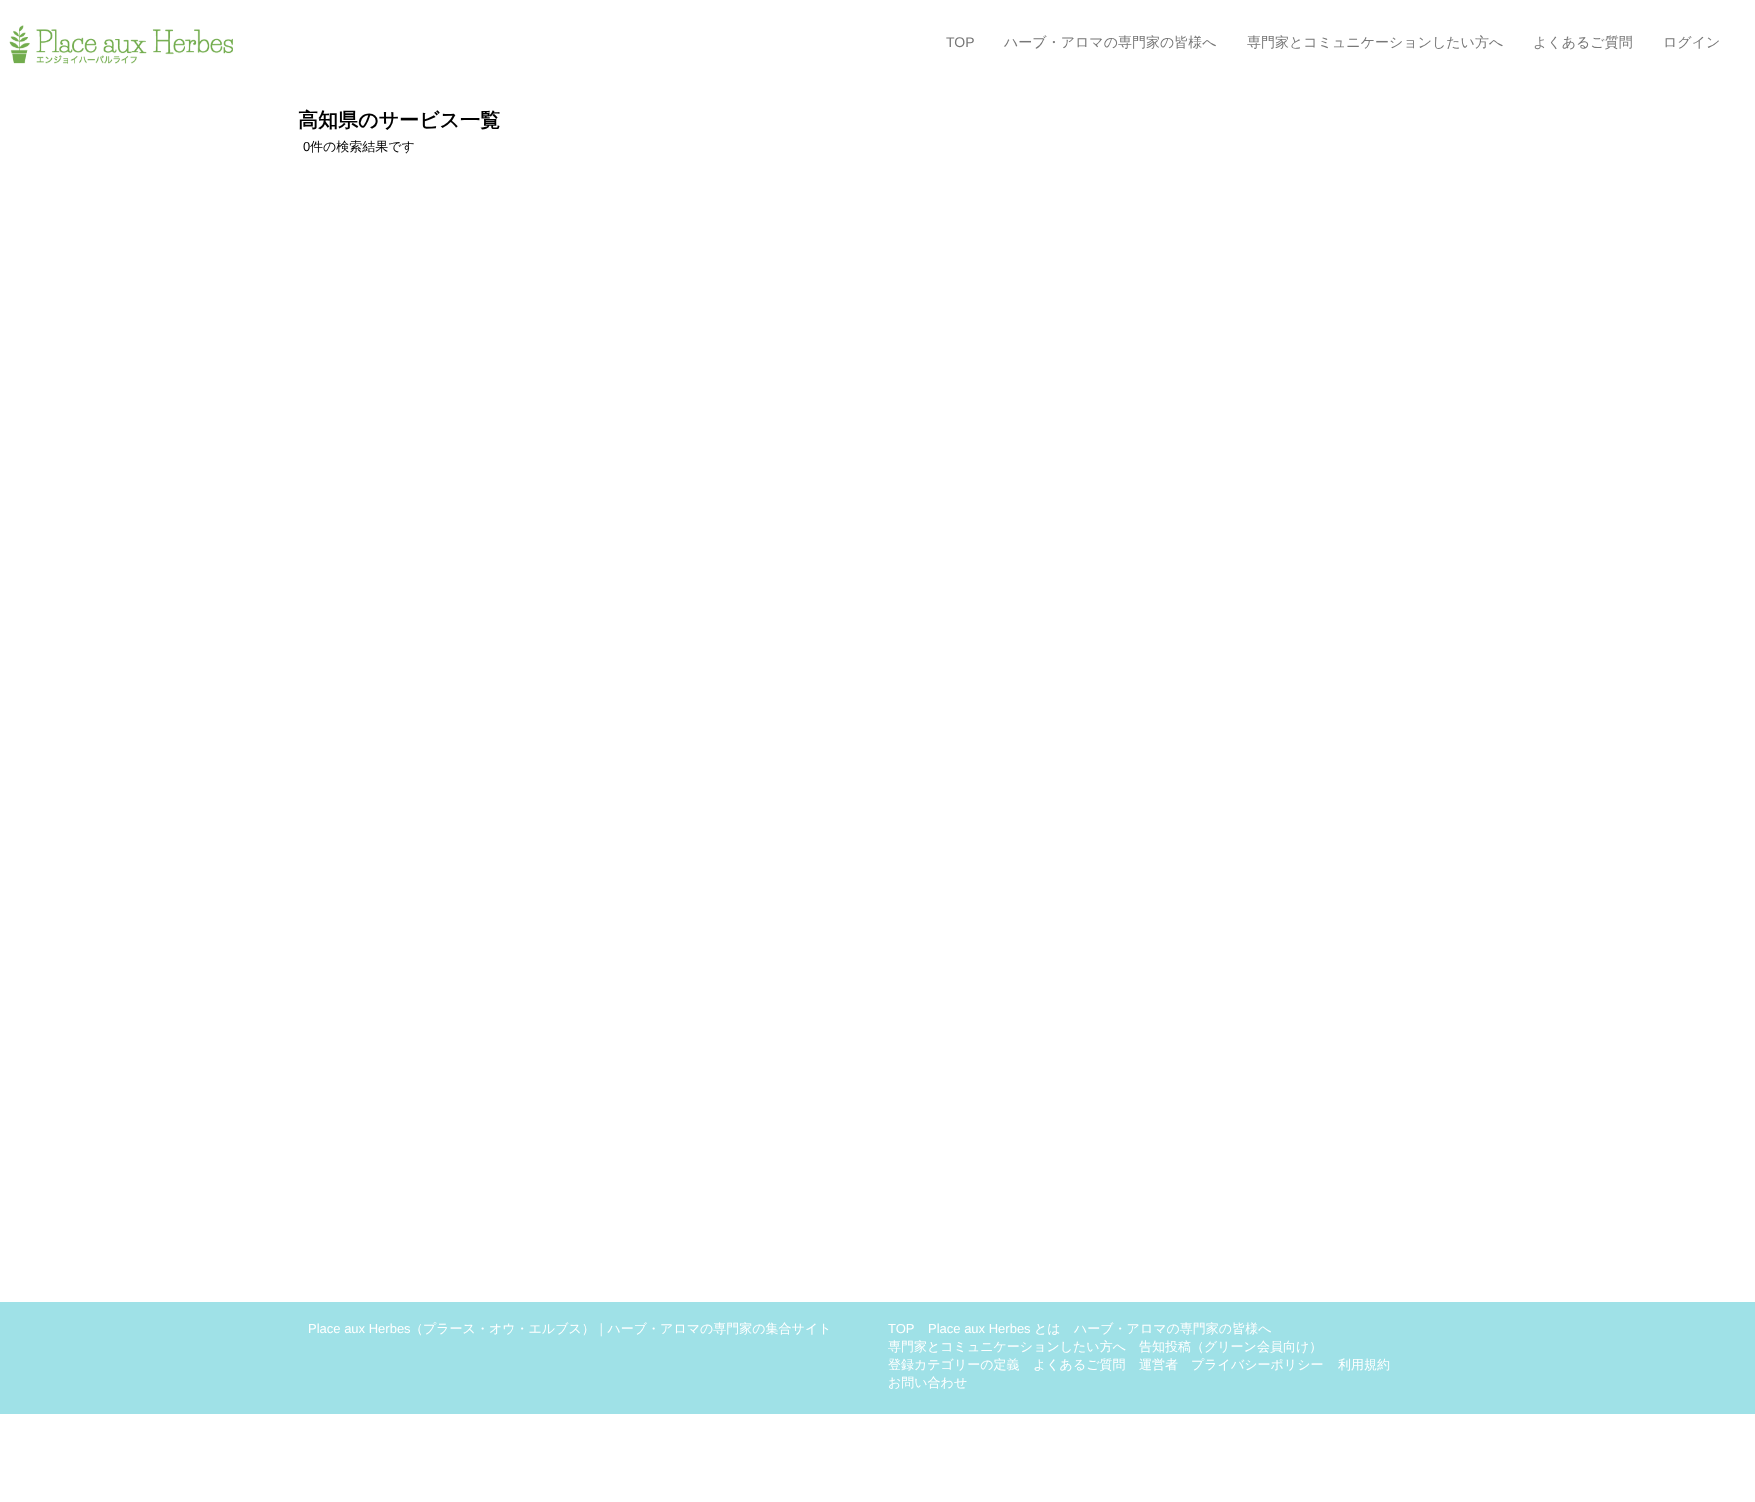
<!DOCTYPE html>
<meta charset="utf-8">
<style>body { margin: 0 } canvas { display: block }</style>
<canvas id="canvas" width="1755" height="1502"></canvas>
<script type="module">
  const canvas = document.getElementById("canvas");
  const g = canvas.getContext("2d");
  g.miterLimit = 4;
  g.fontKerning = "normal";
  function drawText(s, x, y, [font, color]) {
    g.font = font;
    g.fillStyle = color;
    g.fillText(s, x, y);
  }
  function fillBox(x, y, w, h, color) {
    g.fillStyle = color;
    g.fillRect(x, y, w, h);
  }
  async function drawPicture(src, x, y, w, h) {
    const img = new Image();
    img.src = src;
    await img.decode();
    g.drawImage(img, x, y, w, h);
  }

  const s1 = ["14px Liberation Sans", "#777777"];
  const s2 = ["500 14px WenQuanYi Zen Hei", "#777777"];
  const s3 = ["bold 20px WenQuanYi Zen Hei", "#000000"];
  const s4 = ["13px Liberation Sans", "#000000"];
  const s5 = ["500 13px WenQuanYi Zen Hei", "#000000"];
  const s6 = ["13px Liberation Sans", "#FFFFFF"];
  const s7 = ["500 13px WenQuanYi Zen Hei", "#FFFFFF"];

  fillBox(0, 0, 1755, 1502, "#FFFFFF");
  await drawPicture("pic1.png", 9, 25, 224, 39);
  drawText("TOP", 946, 47, s1);
  drawText("ハーブ・アロマの専門家の皆様へ", 1004, 47, s2);
  drawText("専門家とコミュニケーションしたい方へ", 1247, 47, s2);
  drawText("よくあるご質問", 1533, 47, s2);
  drawText("ログイン", 1663, 47, s2);
  drawText("高知県のサービス一覧", 298, 127, s3);
  drawText("0", 303, 151, s4);
  drawText("件の検索結果です", 310, 151, s5);
  fillBox(0, 1302, 1755, 112, "#9FE1E7");
  drawText("Place aux Herbes", 308, 1333, s6);
  drawText("（プラース・オウ・エルブス）｜ハーブ・アロマの専門家の集合サイト", 410, 1333, s7);
  drawText("TOP", 888, 1333, s6);
  drawText("Place aux Herbes", 928, 1333, s6);
  drawText("とは", 1034, 1333, s7);
  drawText("ハーブ・アロマの専門家の皆様へ", 1074, 1333, s7);
  drawText("専門家とコミュニケーションしたい方へ", 888, 1351, s7);
  drawText("告知投稿（グリーン会員向け）", 1139, 1351, s7);
  drawText("登録カテゴリーの定義", 888, 1369, s7);
  drawText("よくあるご質問", 1033, 1369, s7);
  drawText("運営者", 1139, 1369, s7);
  drawText("プライバシーポリシー", 1191, 1369, s7);
  drawText("利用規約", 1338, 1369, s7);
  drawText("お問い合わせ", 888, 1387, s7);
</script>
